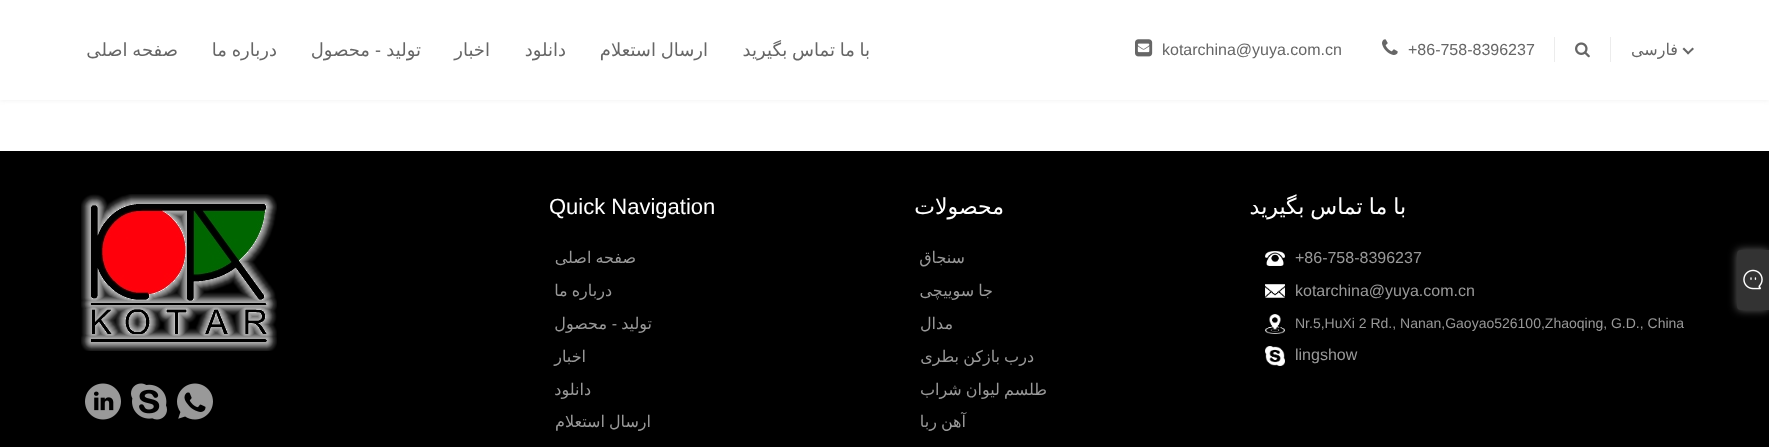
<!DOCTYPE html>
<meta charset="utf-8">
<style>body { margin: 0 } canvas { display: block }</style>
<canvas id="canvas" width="1769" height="447"></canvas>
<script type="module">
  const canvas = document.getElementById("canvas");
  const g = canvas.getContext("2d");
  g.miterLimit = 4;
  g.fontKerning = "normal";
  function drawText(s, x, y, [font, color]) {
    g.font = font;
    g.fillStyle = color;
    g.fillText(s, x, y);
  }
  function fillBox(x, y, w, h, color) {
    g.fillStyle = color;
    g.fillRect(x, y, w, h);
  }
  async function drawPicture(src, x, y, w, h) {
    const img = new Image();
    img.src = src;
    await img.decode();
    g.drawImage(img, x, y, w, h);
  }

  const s1 = ["16px DejaVu Sans", "#666666"];
  const s2 = ["16px Liberation Sans", "#666666"];
  const s3 = ["18px DejaVu Sans", "#666666"];
  const s4 = ["18px Liberation Sans", "#666666"];
  const s5 = ["22px DejaVu Sans", "#FFFFFF"];
  const s6 = ["16px Liberation Sans", "#999999"];
  const s7 = ["14px Liberation Sans", "#999999"];
  const s8 = ["16px DejaVu Sans", "#999999"];
  const s9 = ["22px Liberation Sans", "#FFFFFF"];

  fillBox(0, 0, 1769, 447, "#FFFFFF");
  g.fillStyle = "#EEEEEE";
  g.filter = "blur(2.5px)";
  g.beginPath();
  g.rect(0, 0, 1769, 100);
  g.fill();
  g.filter = "none";
  fillBox(0, 0, 1769, 100, "#FFFFFF");
  g.fillStyle = "#666666";
  g.beginPath();
  g.moveTo(1687, 53);
  g.lineTo(1692.5, 47.5);
  g.lineTo(1694, 49);
  g.lineTo(1688, 54.5);
  g.closePath();
  g.fill();
  g.beginPath();
  g.moveTo(1682.5, 49);
  g.lineTo(1684, 47.5);
  g.lineTo(1689.5, 53);
  g.lineTo(1688, 54.5);
  g.closePath();
  g.fill();
  g.direction = "rtl";
  drawText("فارسی", 1678, 55, s1);
  fillBox(1610, 37, 1, 25, "#ECECEC");
  await drawPicture("pic1.png", 1575, 42, 15, 16);
  fillBox(1554, 37, 1, 25, "#ECECEC");
  g.direction = "ltr";
  drawText("+86-758-8396237", 1408, 55, s2);
  await drawPicture("pic2.png", 1382, 39, 16, 16);
  drawText("kotarchina@yuya.com.cn", 1162, 55, s2);
  await drawPicture("pic3.png", 1135, 39, 18, 18);
  g.wordSpacing = "-1px";
  g.direction = "rtl";
  drawText("با ما تماس بگیرید", 870, 56, s3);
  drawText("ارسال استعلام", 708, 56, s3);
  g.wordSpacing = "0px";
  drawText("دانلود", 566, 56, s3);
  drawText("اخبار", 490, 56, s3);
  drawText("تولید", 421, 56, s3);
  drawText("-", 381, 56, s4);
  drawText("محصول", 370, 56, s3);
  g.wordSpacing = "-1px";
  drawText("درباره ما", 277, 56, s3);
  drawText("صفحه اصلی", 178, 56, s3);
  fillBox(0, 151, 1769, 296, "#000000");
  g.fillStyle = "#666666";
  g.filter = "blur(4px)";
  g.beginPath();
  g.roundRect(1737, 250, 32, 60, 4);
  g.fill();
  g.filter = "none";
  g.fillStyle = "#333333";
  g.beginPath();
  g.roundRect(1737, 250, 32, 60, [4, 0, 0, 4]);
  g.fill();
  await drawPicture("pic4.png", 1743, 269, 20, 21);
  drawText("با ما تماس بگیرید", 1406, 214, s5);
  g.wordSpacing = "0px";
  g.direction = "ltr";
  drawText("+86-758-8396237", 1295, 263, s6);
  await drawPicture("pic5.png", 1265, 251, 20, 15);
  drawText("kotarchina@yuya.com.cn", 1295, 296, s6);
  await drawPicture("pic6.png", 1265, 284, 20, 14);
  drawText("Nr.5,HuXi 2 Rd., Nanan,Gaoyao526100,Zhaoqing, G.D., China", 1295, 328, s7);
  await drawPicture("pic7.png", 1265, 314, 20, 20);
  drawText("lingshow", 1295, 360, s6);
  await drawPicture("pic8.png", 1265, 346, 20, 20);
  g.direction = "rtl";
  drawText("محصولات", 1004, 214, s5);
  drawText("سنجاق", 965, 263, s8);
  g.wordSpacing = "-1px";
  drawText("جا سوییچی", 993, 296, s8);
  g.wordSpacing = "0px";
  drawText("مدال", 953, 329, s8);
  g.wordSpacing = "-1px";
  drawText("درب بازکن بطری", 1034, 362, s8);
  drawText("طلسم لیوان شراب", 1047, 395, s8);
  drawText("آهن ربا", 966, 427, s8);
  g.wordSpacing = "0px";
  g.direction = "ltr";
  drawText("Quick Navigation", 549, 214, s9);
  g.wordSpacing = "-1px";
  g.direction = "rtl";
  drawText("صفحه اصلی", 636, 263, s8);
  drawText("درباره ما", 612, 296, s8);
  g.wordSpacing = "0px";
  drawText("تولید", 652, 329, s8);
  drawText("-", 617, 329, s6);
  drawText("محصول", 607, 329, s8);
  drawText("اخبار", 586, 362, s8);
  drawText("دانلود", 591, 395, s8);
  g.wordSpacing = "-1px";
  drawText("ارسال استعلام", 651, 427, s8);
  await drawPicture("pic9.png", 81, 194, 196, 157);
  await drawPicture("pic10.png", 177, 383, 36, 37);
  await drawPicture("pic11.png", 131, 383, 36, 37);
  await drawPicture("pic12.png", 85, 383, 36, 37);
</script>
